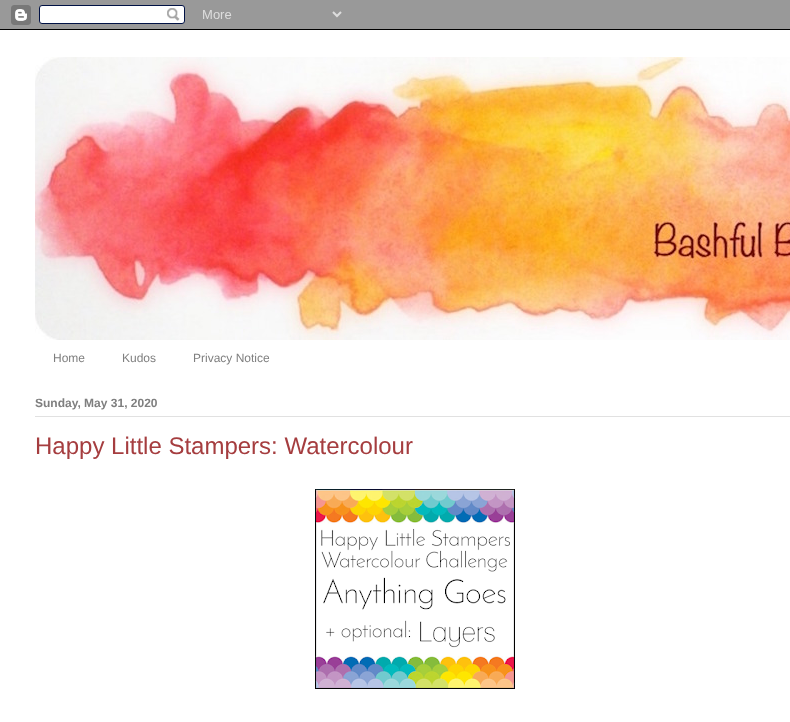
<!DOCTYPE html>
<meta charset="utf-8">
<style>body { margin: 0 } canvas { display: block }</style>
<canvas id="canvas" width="790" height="722"></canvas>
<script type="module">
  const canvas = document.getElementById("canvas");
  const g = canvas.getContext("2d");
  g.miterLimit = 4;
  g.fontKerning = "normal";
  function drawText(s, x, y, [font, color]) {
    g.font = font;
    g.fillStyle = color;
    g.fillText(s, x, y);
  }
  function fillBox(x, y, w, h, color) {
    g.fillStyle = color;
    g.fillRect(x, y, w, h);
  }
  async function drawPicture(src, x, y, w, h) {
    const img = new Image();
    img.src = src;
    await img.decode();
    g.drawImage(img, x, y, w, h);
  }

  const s1 = ["12px Liberation Sans", "#7F7F7F"];
  const s2 = ["bold 12px Liberation Sans", "#7F7F7F"];
  const s3 = ["24px Liberation Sans", "#A53D3F"];

  fillBox(0, 0, 790, 722, "#FFFFFF");
  await drawPicture("pic1.png", 0, 0, 790, 30);
  await drawPicture("pic2.png", 35, 57, 755, 283);
  drawText("Home", 53, 362, s1);
  drawText("Kudos", 122, 362, s1);
  drawText("Privacy Notice", 193, 362, s1);
  fillBox(35, 416, 755, 1, "#E1E1E1");
  drawText("Sunday, May 31, 2020", 35, 407, s2);
  drawText("Happy Little Stampers: Watercolour", 35, 454, s3);
  await drawPicture("pic3.png", 315, 489, 200, 200);
</script>
